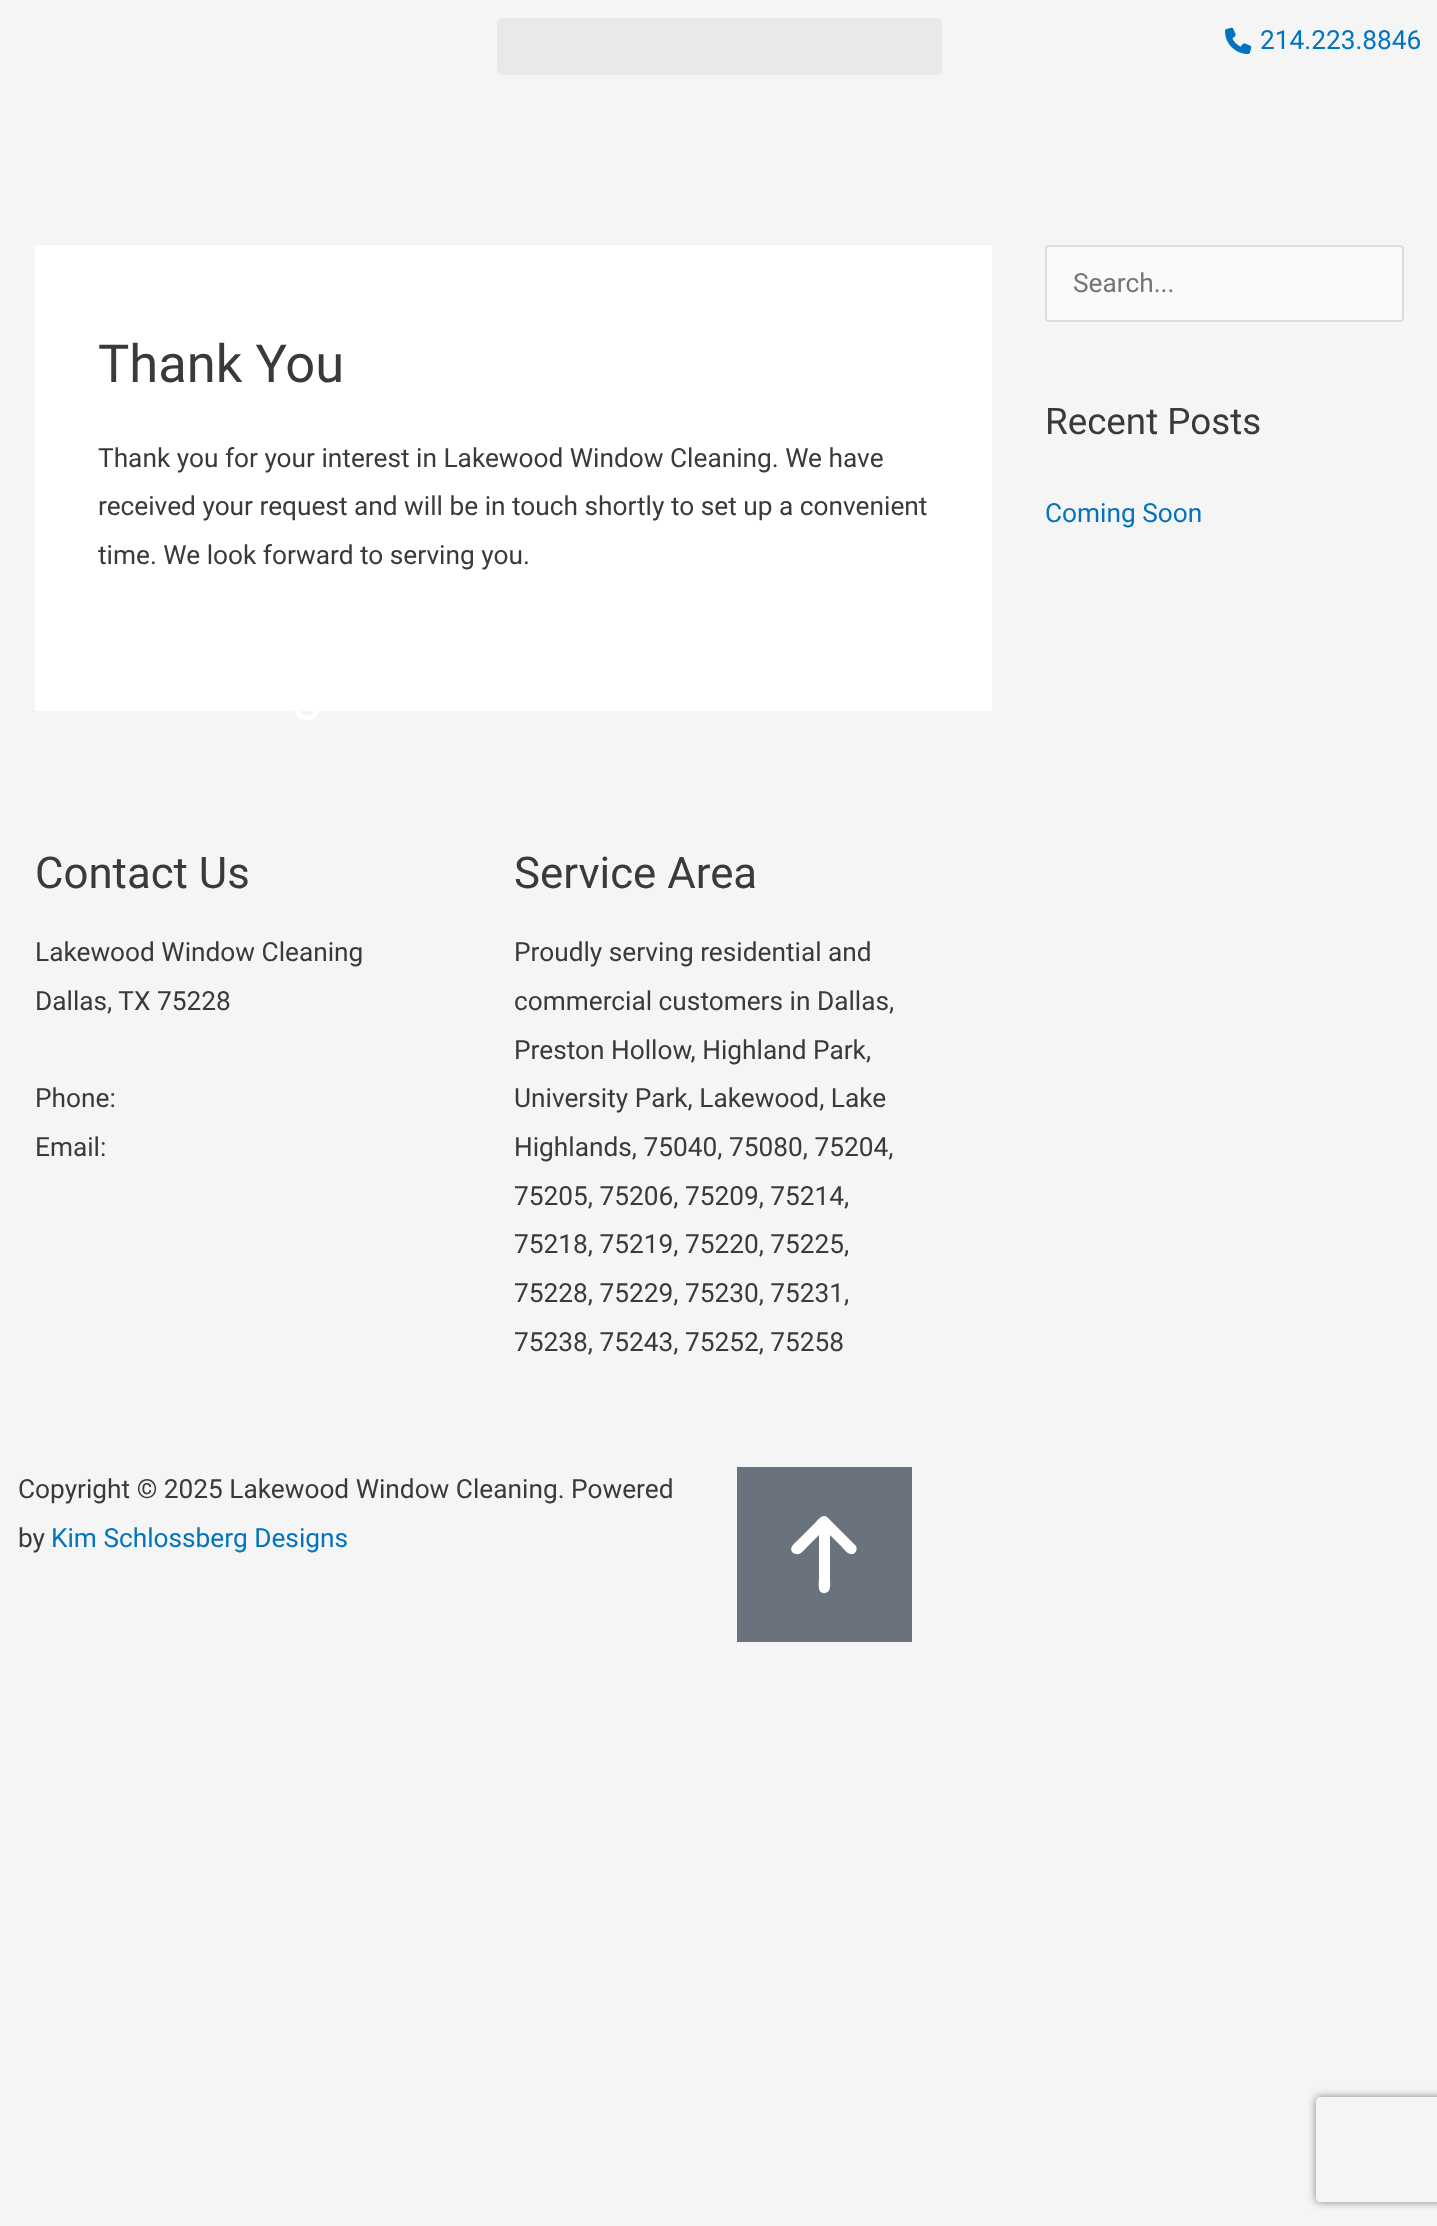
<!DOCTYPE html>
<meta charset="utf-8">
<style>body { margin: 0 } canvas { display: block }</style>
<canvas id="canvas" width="1437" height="2226"></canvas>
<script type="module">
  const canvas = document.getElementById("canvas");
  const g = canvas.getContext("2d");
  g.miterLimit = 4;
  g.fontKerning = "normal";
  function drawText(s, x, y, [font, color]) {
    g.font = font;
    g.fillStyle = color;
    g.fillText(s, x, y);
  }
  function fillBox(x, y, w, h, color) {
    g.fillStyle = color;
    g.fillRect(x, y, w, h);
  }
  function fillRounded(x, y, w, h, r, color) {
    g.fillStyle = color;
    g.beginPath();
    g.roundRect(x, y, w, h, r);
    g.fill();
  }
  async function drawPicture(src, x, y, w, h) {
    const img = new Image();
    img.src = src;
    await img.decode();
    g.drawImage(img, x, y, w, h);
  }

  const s1 = ["26.25px Roboto", "#0274BE"];
  const s2 = ["52.5px Roboto", "#3A3A3A"];
  const s3 = ["26.25px Roboto", "#3A3A3A"];
  const s4 = ["26.25px Roboto", "#757575"];
  const s5 = ["36.75px Roboto", "#3A3A3A"];
  const s6 = ["43.75px Roboto", "#3A3A3A"];

  fillBox(0, 0, 1437, 2226, "#F5F5F5");
  fillRounded(497, 18, 445, 57, 5, "#E9E9E9");
  await drawPicture("pic1.png", 1225, 27, 27, 27);
  drawText("214.223.8846", 1260, 49, s1);
  fillBox(35, 245, 957, 466, "#FFFFFF");
  drawText("Thank You", 98, 382, s2);
  drawText("Thank you for your interest in Lakewood Window Cleaning. We have", 98, 467, s3);
  drawText("received your request and will be in touch shortly to set up a convenient", 98, 515, s3);
  drawText("time. We look forward to serving you.", 98, 564, s3);
  g.fillStyle = "#FAFAFA";
  g.beginPath();
  g.roundRect(1046, 246, 357, 75, 3);
  g.fill();
  g.strokeStyle = "#DDDDDD";
  g.lineWidth = 2;
  g.stroke();
  drawText("Search...", 1073, 292, s4);
  drawText("Recent Posts", 1045, 434, s5);
  drawText("Coming Soon", 1045, 522, s1);
  drawText("Contact Us", 35, 888, s6);
  drawText("Lakewood Window Cleaning", 35, 961, s3);
  drawText("Dallas, TX 75228", 35, 1010, s3);
  drawText("Phone:", 35, 1107, s3);
  drawText("Email:", 35, 1156, s3);
  drawText("Service Area", 514, 888, s6);
  drawText("Proudly serving residential and", 514, 961, s3);
  drawText("commercial customers in Dallas,", 514, 1010, s3);
  drawText("Preston Hollow, Highland Park,", 514, 1059, s3);
  drawText("University Park, Lakewood, Lake", 514, 1107, s3);
  drawText("Highlands, 75040, 75080, 75204,", 514, 1156, s3);
  drawText("75205, 75206, 75209, 75214,", 514, 1205, s3);
  drawText("75218, 75219, 75220, 75225,", 514, 1253, s3);
  drawText("75228, 75229, 75230, 75231,", 514, 1302, s3);
  drawText("75238, 75243, 75252, 75258", 514, 1351, s3);
  drawText("Copyright © 2025 Lakewood Window Cleaning. Powered", 18, 1498, s3);
  drawText("by", 18, 1547, s3);
  drawText("Kim Schlossberg Designs", 51, 1547, s1);
  fillBox(737, 1467, 175, 175, "#69727D");
  g.fillStyle = "#FFFFFF";
  g.beginPath();
  g.moveTo(828, 1518);
  g.bezierCurveTo(823, 1513, 819, 1519, 816, 1522);
  g.lineTo(798, 1540);
  g.bezierCurveTo(795, 1543, 789, 1547, 792, 1552);
  g.bezierCurveTo(793, 1553, 795, 1554, 796, 1554);
  g.bezierCurveTo(801, 1555, 804, 1550, 807, 1547);
  g.lineTo(819, 1535);
  g.lineTo(819, 1579);
  g.bezierCurveTo(819, 1583, 817, 1593, 824, 1593);
  g.bezierCurveTo(832, 1593, 830, 1583, 830, 1579);
  g.lineTo(830, 1535);
  g.lineTo(842, 1547);
  g.bezierCurveTo(844, 1549, 847, 1554, 851, 1554);
  g.bezierCurveTo(855, 1555, 858, 1550, 856, 1546);
  g.closePath();
  g.fill();
  await drawPicture("pic2.png", 295, 711, 24, 9);
  g.save();
  g.beginPath();
  g.moveTo(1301, 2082);
  g.lineTo(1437, 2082);
  g.lineTo(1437, 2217);
  g.lineTo(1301, 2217);
  g.closePath();
  g.moveTo(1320, 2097);
  g.lineTo(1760, 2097);
  g.bezierCurveTo(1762, 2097, 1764, 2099, 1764, 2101);
  g.lineTo(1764, 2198);
  g.bezierCurveTo(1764, 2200, 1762, 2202, 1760, 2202);
  g.lineTo(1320, 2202);
  g.bezierCurveTo(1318, 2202, 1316, 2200, 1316, 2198);
  g.lineTo(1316, 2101);
  g.bezierCurveTo(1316, 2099, 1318, 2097, 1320, 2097);
  g.closePath();
  g.clip("evenodd");
  g.fillStyle = "#808080";
  g.filter = "blur(4.5px)";
  g.beginPath();
  g.roundRect(1316, 2097, 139, 105, 4);
  g.fill();
  g.filter = "none";
  g.restore();
</script>
